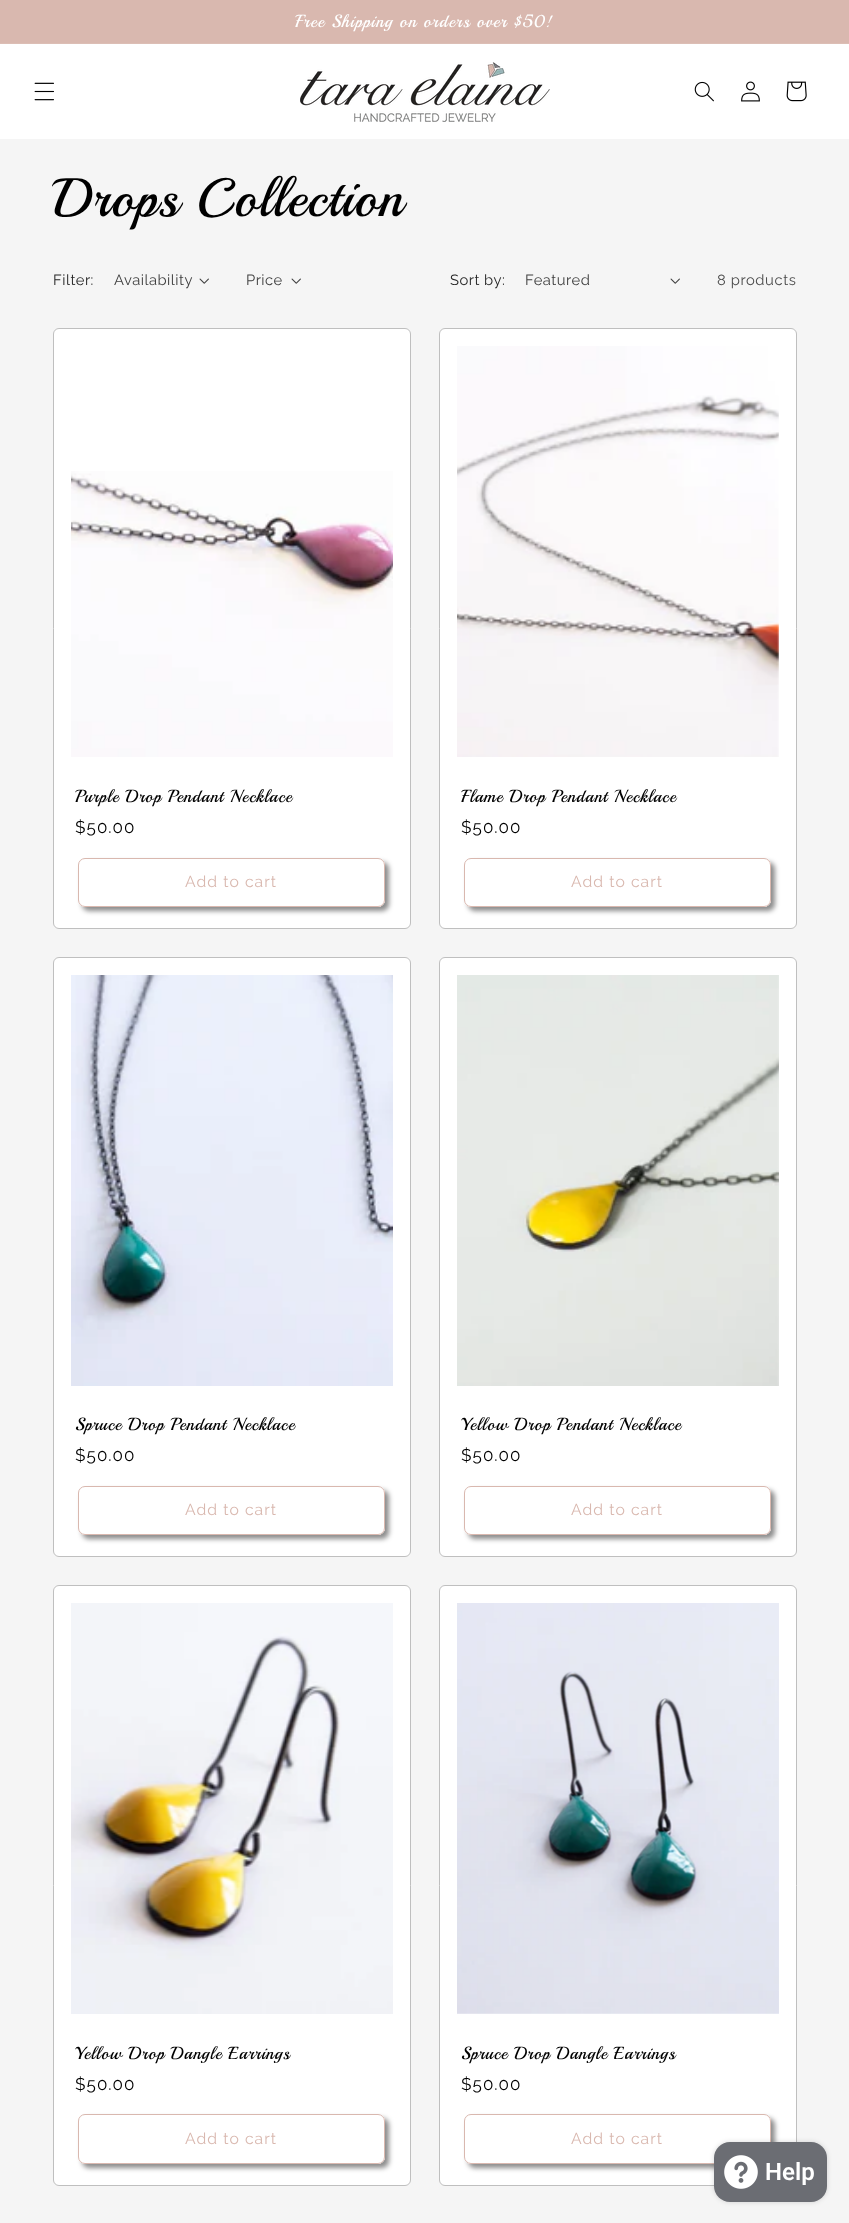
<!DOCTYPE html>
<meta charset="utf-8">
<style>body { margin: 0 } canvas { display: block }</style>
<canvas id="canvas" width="849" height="2223"></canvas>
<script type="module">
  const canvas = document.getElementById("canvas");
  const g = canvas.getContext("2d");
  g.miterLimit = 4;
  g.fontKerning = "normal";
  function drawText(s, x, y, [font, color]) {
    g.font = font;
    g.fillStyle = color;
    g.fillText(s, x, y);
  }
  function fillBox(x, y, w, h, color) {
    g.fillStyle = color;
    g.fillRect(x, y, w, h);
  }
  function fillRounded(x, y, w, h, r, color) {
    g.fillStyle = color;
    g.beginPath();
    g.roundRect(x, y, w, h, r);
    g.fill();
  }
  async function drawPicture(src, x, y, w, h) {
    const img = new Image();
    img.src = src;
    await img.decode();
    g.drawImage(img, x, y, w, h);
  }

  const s1 = ["17.5px Playball", "#FFFFFF"];
  const s2 = ["54px Playball", "#000000"];
  const s3 = ["14.75px Raleway", "#252525"];
  const s4 = ["14.75px Raleway", "#3D3D3D"];
  const s5 = ["14.75px Raleway", "#4A4A4A"];
  const s6 = ["17.5px Playball", "#000000"];
  const s7 = ["17px Raleway", "#000000"];
  const s8 = ["15.75px Raleway", "#D9B8AF"];
  const s9 = ["600 24px Roboto", "#FFFFFF"];

  fillBox(0, 0, 849, 2223, "#F5F5F5");
  fillBox(0, 0, 849, 43, "#D9B8AF");
  fillBox(0, 43, 849, 1, "#DCBEB5");
  g.letterSpacing = "1.05px";
  drawText("Free Shipping on orders over $50!", 295, 27, s1);
  fillBox(0, 44, 849, 95, "#FFFFFF");
  await drawPicture("pic1.png", 34, 82, 20, 19);
  await drawPicture("pic2.png", 300, 62, 250, 60);
  await drawPicture("pic3.png", 694, 81, 20, 21);
  await drawPicture("pic4.png", 741, 81, 19, 21);
  await drawPicture("pic5.png", 786, 81, 21, 21);
  g.letterSpacing = "0.8px";
  drawText("Drops Collection", 53, 216, s2);
  g.letterSpacing = "0.5px";
  drawText("Filter:", 53, 285, s3);
  drawText("Availability", 114, 285, s4);
  await drawPicture("pic6.png", 199, 278, 10, 6);
  drawText("Price", 246, 285, s4);
  await drawPicture("pic6.png", 291, 278, 10, 6);
  drawText("Sort by:", 450, 285, s3);
  drawText("Featured", 525, 285, s4);
  await drawPicture("pic6.png", 670, 278, 10, 6);
  g.letterSpacing = "0.6px";
  drawText("8 products", 717, 285, s5);
  g.fillStyle = "#FFFFFF";
  g.beginPath();
  g.roundRect(53.5, 328.5, 357, 600, 5.5);
  g.fill();
  g.strokeStyle = "#BFBFBF";
  g.stroke();
  await drawPicture("pic7.png", 71, 471, 322, 286);
  g.letterSpacing = "0.8px";
  drawText("Purple Drop Pendant Necklace", 75, 802, s6);
  g.letterSpacing = "1.05px";
  drawText("$50.00", 75, 833, s7);
  g.fillStyle = "rgba(0, 0, 0, 0.45)";
  g.filter = "blur(2.5px)";
  g.beginPath();
  g.roundRect(82, 862, 307, 49, 7);
  g.fill();
  g.filter = "none";
  fillRounded(78, 858, 307, 49, 7, "#FFFFFF");
  g.beginPath();
  g.roundRect(78.5, 858.5, 306, 48, 6.5);
  g.strokeStyle = "#FFFFFF";
  g.stroke();
  g.beginPath();
  g.roundRect(78.5, 858.5, 306, 48, 6.5);
  g.strokeStyle = "#D9B8AF";
  g.stroke();
  drawText("Add to cart", 185, 887, s8);
  g.fillStyle = "#FFFFFF";
  g.beginPath();
  g.roundRect(439.5, 328.5, 357, 600, 5.5);
  g.fill();
  g.strokeStyle = "#BFBFBF";
  g.stroke();
  await drawPicture("pic8.png", 457, 346, 322, 411);
  g.letterSpacing = "0.8px";
  drawText("Flame Drop Pendant Necklace", 461, 802, s6);
  g.letterSpacing = "1.05px";
  drawText("$50.00", 461, 833, s7);
  g.fillStyle = "rgba(0, 0, 0, 0.45)";
  g.filter = "blur(2.5px)";
  g.beginPath();
  g.roundRect(468, 862, 307, 49, 7);
  g.fill();
  g.filter = "none";
  fillRounded(464, 858, 307, 49, 7, "#FFFFFF");
  g.beginPath();
  g.roundRect(464.5, 858.5, 306, 48, 6.5);
  g.strokeStyle = "#FFFFFF";
  g.stroke();
  g.beginPath();
  g.roundRect(464.5, 858.5, 306, 48, 6.5);
  g.strokeStyle = "#D9B8AF";
  g.stroke();
  drawText("Add to cart", 571, 887, s8);
  g.fillStyle = "#FFFFFF";
  g.beginPath();
  g.roundRect(53.5, 957.5, 357, 599, 5.5);
  g.fill();
  g.strokeStyle = "#BFBFBF";
  g.stroke();
  await drawPicture("pic9.png", 71, 975, 322, 411);
  g.letterSpacing = "0.8px";
  drawText("Spruce Drop Pendant Necklace", 75, 1430, s6);
  g.letterSpacing = "1.05px";
  drawText("$50.00", 75, 1461, s7);
  g.fillStyle = "rgba(0, 0, 0, 0.45)";
  g.filter = "blur(2.5px)";
  g.beginPath();
  g.roundRect(82, 1490, 307, 49, 7);
  g.fill();
  g.filter = "none";
  fillRounded(78, 1486, 307, 49, 7, "#FFFFFF");
  g.beginPath();
  g.roundRect(78.5, 1486.5, 306, 48, 6.5);
  g.strokeStyle = "#FFFFFF";
  g.stroke();
  g.beginPath();
  g.roundRect(78.5, 1486.5, 306, 48, 6.5);
  g.strokeStyle = "#D9B8AF";
  g.stroke();
  drawText("Add to cart", 185, 1515, s8);
  g.fillStyle = "#FFFFFF";
  g.beginPath();
  g.roundRect(439.5, 957.5, 357, 599, 5.5);
  g.fill();
  g.strokeStyle = "#BFBFBF";
  g.stroke();
  await drawPicture("pic10.png", 457, 975, 322, 411);
  g.letterSpacing = "0.8px";
  drawText("Yellow Drop Pendant Necklace", 461, 1430, s6);
  g.letterSpacing = "1.05px";
  drawText("$50.00", 461, 1461, s7);
  g.fillStyle = "rgba(0, 0, 0, 0.45)";
  g.filter = "blur(2.5px)";
  g.beginPath();
  g.roundRect(468, 1490, 307, 49, 7);
  g.fill();
  g.filter = "none";
  fillRounded(464, 1486, 307, 49, 7, "#FFFFFF");
  g.beginPath();
  g.roundRect(464.5, 1486.5, 306, 48, 6.5);
  g.strokeStyle = "#FFFFFF";
  g.stroke();
  g.beginPath();
  g.roundRect(464.5, 1486.5, 306, 48, 6.5);
  g.strokeStyle = "#D9B8AF";
  g.stroke();
  drawText("Add to cart", 571, 1515, s8);
  g.fillStyle = "#FFFFFF";
  g.beginPath();
  g.roundRect(53.5, 1585.5, 357, 600, 5.5);
  g.fill();
  g.strokeStyle = "#BFBFBF";
  g.stroke();
  await drawPicture("pic11.png", 71, 1603, 322, 411);
  g.letterSpacing = "0.8px";
  drawText("Yellow Drop Dangle Earrings", 75, 2059, s6);
  g.letterSpacing = "1.05px";
  drawText("$50.00", 75, 2090, s7);
  g.fillStyle = "rgba(0, 0, 0, 0.45)";
  g.filter = "blur(2.5px)";
  g.beginPath();
  g.roundRect(82, 2118, 307, 50, 7);
  g.fill();
  g.filter = "none";
  fillRounded(78, 2114, 307, 50, 7, "#FFFFFF");
  g.beginPath();
  g.roundRect(78.5, 2114.5, 306, 49, 6.5);
  g.strokeStyle = "#FFFFFF";
  g.stroke();
  g.beginPath();
  g.roundRect(78.5, 2114.5, 306, 49, 6.5);
  g.strokeStyle = "#D9B8AF";
  g.stroke();
  drawText("Add to cart", 185, 2144, s8);
  g.fillStyle = "#FFFFFF";
  g.beginPath();
  g.roundRect(439.5, 1585.5, 357, 600, 5.5);
  g.fill();
  g.strokeStyle = "#BFBFBF";
  g.stroke();
  await drawPicture("pic12.png", 457, 1603, 322, 411);
  g.letterSpacing = "0.8px";
  drawText("Spruce Drop Dangle Earrings", 461, 2059, s6);
  g.letterSpacing = "1.05px";
  drawText("$50.00", 461, 2090, s7);
  g.fillStyle = "rgba(0, 0, 0, 0.45)";
  g.filter = "blur(2.5px)";
  g.beginPath();
  g.roundRect(468, 2118, 307, 50, 7);
  g.fill();
  g.filter = "none";
  fillRounded(464, 2114, 307, 50, 7, "#FFFFFF");
  g.beginPath();
  g.roundRect(464.5, 2114.5, 306, 49, 6.5);
  g.strokeStyle = "#FFFFFF";
  g.stroke();
  g.beginPath();
  g.roundRect(464.5, 2114.5, 306, 49, 6.5);
  g.strokeStyle = "#D9B8AF";
  g.stroke();
  drawText("Add to cart", 571, 2144, s8);
  g.fillStyle = "rgba(0, 0, 0, 0.15)";
  g.filter = "blur(2.5px)";
  g.beginPath();
  g.roundRect(714, 2142, 113, 60, 16);
  g.fill();
  g.filter = "none";
  fillRounded(714, 2142, 113, 60, 16, "#6B6D73");
  await drawPicture("pic13.png", 724, 2155, 34, 34);
  g.letterSpacing = "0px";
  drawText("Help", 765, 2180, s9);
</script>
